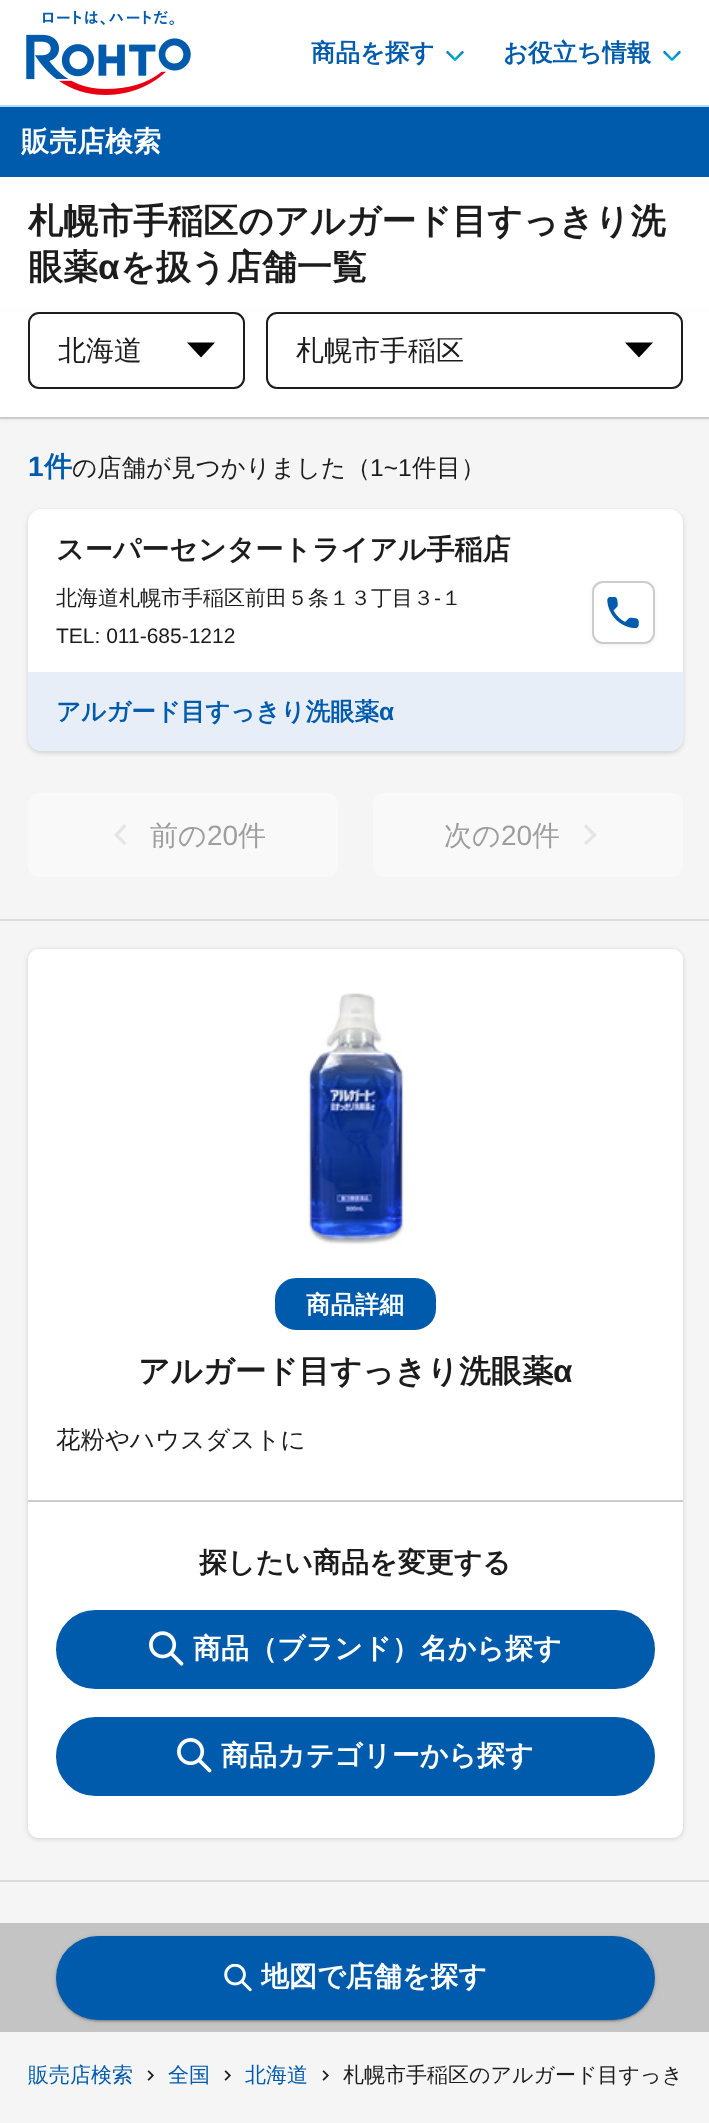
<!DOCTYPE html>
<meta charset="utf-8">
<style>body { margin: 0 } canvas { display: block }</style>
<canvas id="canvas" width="709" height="2123"></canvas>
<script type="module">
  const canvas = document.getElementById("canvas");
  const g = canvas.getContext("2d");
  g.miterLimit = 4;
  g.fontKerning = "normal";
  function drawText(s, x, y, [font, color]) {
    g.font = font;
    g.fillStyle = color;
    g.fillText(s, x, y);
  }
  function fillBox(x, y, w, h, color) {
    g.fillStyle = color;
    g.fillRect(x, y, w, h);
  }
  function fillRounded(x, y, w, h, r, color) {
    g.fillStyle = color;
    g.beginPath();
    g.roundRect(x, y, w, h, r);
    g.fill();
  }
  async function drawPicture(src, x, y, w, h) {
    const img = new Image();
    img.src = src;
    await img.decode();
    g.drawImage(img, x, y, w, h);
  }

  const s1 = ["bold 24.5px WenQuanYi Zen Hei", "#005BAC"];
  const s2 = ["bold 28px WenQuanYi Zen Hei", "#FFFFFF"];
  const s3 = ["bold 35px WenQuanYi Zen Hei", "#1C1C1C"];
  const s4 = ["bold 35px Liberation Sans", "#1C1C1C"];
  const s5 = ["500 28px WenQuanYi Zen Hei", "#1C1C1C"];
  const s6 = ["bold 28px Liberation Sans", "#005BAC"];
  const s7 = ["bold 28px WenQuanYi Zen Hei", "#005BAC"];
  const s8 = ["500 24.5px WenQuanYi Zen Hei", "#1C1C1C"];
  const s9 = ["24.5px Liberation Sans", "#1C1C1C"];
  const s10 = ["bold 28px WenQuanYi Zen Hei", "#1C1C1C"];
  const s11 = ["500 21px WenQuanYi Zen Hei", "#1C1C1C"];
  const s12 = ["21px Liberation Sans", "#1C1C1C"];
  const s13 = ["bold 24.5px Liberation Sans", "#005BAC"];
  const s14 = ["500 28px WenQuanYi Zen Hei", "#9E9E9E"];
  const s15 = ["28px Liberation Sans", "#9E9E9E"];
  const s16 = ["bold 24.5px WenQuanYi Zen Hei", "#FFFFFF"];
  const s17 = ["bold 31.5px WenQuanYi Zen Hei", "#1C1C1C"];
  const s18 = ["bold 31.5px Liberation Sans", "#1C1C1C"];
  const s19 = ["500 21px WenQuanYi Zen Hei", "#005BAC"];

  fillBox(0, 0, 709, 2123, "#FFFFFF");
  fillBox(0, 105, 709, 2, "#B5DCFF");
  await drawPicture("pic1.png", 26, 11, 165, 84);
  drawText("商品を探す", 311, 61, s1);
  await drawPicture("pic2.png", 446, 51, 18, 10);
  drawText("お役立ち情報", 503, 61, s1);
  await drawPicture("pic2.png", 663, 51, 18, 10);
  fillBox(0, 419, 709, 1704, "#F5F5F5");
  fillBox(0, 107, 709, 70, "#005BAC");
  drawText("販売店検索", 21, 151, s2);
  drawText("札幌市手稲区のアルガード目すっきり洗", 28, 233, s3);
  drawText("眼薬", 28, 279, s3);
  drawText("α", 98, 279, s4);
  drawText("を扱う店舗一覧", 120, 279, s3);
  g.fillStyle = "rgba(0, 0, 0, 0.05)";
  g.filter = "blur(2px)";
  g.beginPath();
  g.rect(0, 313, 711, 107);
  g.fill();
  g.filter = "none";
  fillBox(0, 312, 709, 105, "#FFFFFF");
  fillBox(0, 417, 709, 2, "#CCCCCC");
  g.beginPath();
  g.roundRect(29, 313, 215, 75, 10);
  g.strokeStyle = "#1C1C1C";
  g.lineWidth = 2;
  g.stroke();
  drawText("北海道", 58, 360, s5);
  g.fillStyle = "#000000";
  g.beginPath();
  g.moveTo(201, 357.5);
  g.lineTo(187, 342.5);
  g.lineTo(215, 342.5);
  g.closePath();
  g.fill();
  g.beginPath();
  g.roundRect(267, 313, 415, 75, 10);
  g.stroke();
  drawText("札幌市手稲区", 296, 360, s5);
  g.fillStyle = "#000000";
  g.beginPath();
  g.moveTo(639, 357.5);
  g.lineTo(625, 342.5);
  g.lineTo(653, 342.5);
  g.closePath();
  g.fill();
  drawText("1", 28, 476, s6);
  drawText("件", 44, 476, s7);
  drawText("の店舗が見つかりました（", 72, 476, s8);
  drawText("1~1", 370, 476, s9);
  drawText("件目）", 412, 476, s8);
  g.fillStyle = "rgba(0, 0, 0, 0.15)";
  g.filter = "blur(2.5px)";
  g.beginPath();
  g.roundRect(28, 511, 655, 242, 14);
  g.fill();
  g.filter = "none";
  fillRounded(28, 509, 655, 242, 14, "#FFFFFF");
  drawText("スーパーセンタートライアル手稲店", 56, 559, s10);
  drawText("北海道札幌市手稲区前田５条１３丁目３", 56, 605, s11);
  drawText("-", 434, 605, s12);
  drawText("１", 441, 605, s11);
  drawText("TEL: 011-685-1212", 56, 643, s12);
  g.fillStyle = "rgba(0, 0, 0, 0.05)";
  g.filter = "blur(2px)";
  g.beginPath();
  g.roundRect(592, 583, 63, 63, 11);
  g.fill();
  g.filter = "none";
  g.fillStyle = "#FFFFFF";
  g.beginPath();
  g.roundRect(593, 582, 61, 61, 10);
  g.fill();
  g.strokeStyle = "#CCCCCC";
  g.stroke();
  await drawPicture("pic3.png", 607, 597, 32, 31);
  g.fillStyle = "#E7EEF8";
  g.beginPath();
  g.roundRect(28, 672, 655, 79, [0, 0, 14, 14]);
  g.fill();
  drawText("アルガード目すっきり洗眼薬", 56, 720, s1);
  drawText("α", 379, 720, s13);
  fillRounded(28, 793, 310, 84, 11, "#F9F9F9");
  g.fillStyle = "#E5E5E5";
  g.beginPath();
  g.moveTo(126.5, 826.5);
  g.lineTo(124, 824);
  g.lineTo(114, 835);
  g.lineTo(124, 845);
  g.lineTo(126.5, 843);
  g.lineTo(118.5, 835);
  g.closePath();
  g.fill();
  drawText("前の", 150, 845, s14);
  drawText("20", 207, 845, s15);
  drawText("件", 238, 845, s14);
  fillRounded(373, 793, 310, 84, 11, "#F9F9F9");
  drawText("次の", 444, 845, s14);
  drawText("20", 501, 845, s15);
  drawText("件", 532, 845, s14);
  g.fillStyle = "#E5E5E5";
  g.beginPath();
  g.moveTo(586, 824);
  g.lineTo(584, 826.5);
  g.lineTo(592, 835);
  g.lineTo(584, 843);
  g.lineTo(586, 845);
  g.lineTo(597, 835);
  g.closePath();
  g.fill();
  fillBox(0, 919, 709, 2, "#DCDCDC");
  g.fillStyle = "rgba(0, 0, 0, 0.15)";
  g.filter = "blur(2.5px)";
  g.beginPath();
  g.roundRect(28, 950, 655, 889, 11);
  g.fill();
  g.filter = "none";
  fillRounded(28, 949, 655, 889, 11, "#FFFFFF");
  await drawPicture("pic4.png", 304, 993, 100, 252);
  g.fillStyle = "#005BAC";
  g.beginPath();
  g.roundRect(277, 1280, 157, 48, 19);
  g.fill();
  g.strokeStyle = "#005BAC";
  g.lineWidth = 4;
  g.stroke();
  drawText("商品詳細", 306, 1313, s16);
  drawText("アルガード目すっきり洗眼薬", 138, 1382, s17);
  drawText("α", 553, 1382, s18);
  drawText("花粉やハウスダストに", 56, 1448, s8);
  fillBox(28, 1500, 655, 2, "#CCCCCC");
  drawText("探したい商品を変更する", 199, 1572, s10);
  g.fillStyle = "#005BAC";
  g.beginPath();
  g.roundRect(58, 1612, 595, 75, 37.5);
  g.fill();
  g.stroke();
  await drawPicture("pic5.png", 149, 1631, 35, 35);
  drawText("商品（ブランド）名から探す", 193, 1658, s2);
  g.fillStyle = "#005BAC";
  g.beginPath();
  g.roundRect(58, 1719, 595, 75, 37.5);
  g.fill();
  g.stroke();
  await drawPicture("pic6.png", 177, 1738, 35, 35);
  drawText("商品カテゴリーから探す", 221, 1765, s2);
  fillBox(0, 1880, 709, 2, "#DCDCDC");
  fillBox(0, 1923, 709, 109, "#C4C4C4");
  g.fillStyle = "rgba(0, 0, 0, 0.12)";
  g.filter = "blur(2.5px)";
  g.beginPath();
  g.roundRect(56, 1937, 599, 84, 42);
  g.fill();
  g.filter = "none";
  g.fillStyle = "rgba(0, 0, 0, 0.14)";
  g.filter = "blur(1px)";
  g.beginPath();
  g.roundRect(56, 1937, 599, 84, 42);
  g.fill();
  g.filter = "none";
  g.fillStyle = "rgba(0, 0, 0, 0.2)";
  g.filter = "blur(1px)";
  g.beginPath();
  g.roundRect(58, 1941, 595, 80, 40);
  g.fill();
  g.filter = "none";
  fillRounded(56, 1936, 599, 84, 42, "#005BAC");
  await drawPicture("pic7.png", 224, 1964, 28, 28);
  drawText("地図で店舗を探す", 261, 1986, s2);
  drawText("販売店検索", 28, 2082, s19);
  await drawPicture("pic8.png", 147, 2070, 7, 11);
  drawText("全国", 168, 2082, s19);
  await drawPicture("pic8.png", 224, 2070, 7, 11);
  drawText("北海道", 245, 2082, s19);
  await drawPicture("pic8.png", 322, 2070, 7, 11);
  drawText("札幌市手稲区のアルガード目すっき", 343, 2082, s11);
</script>
